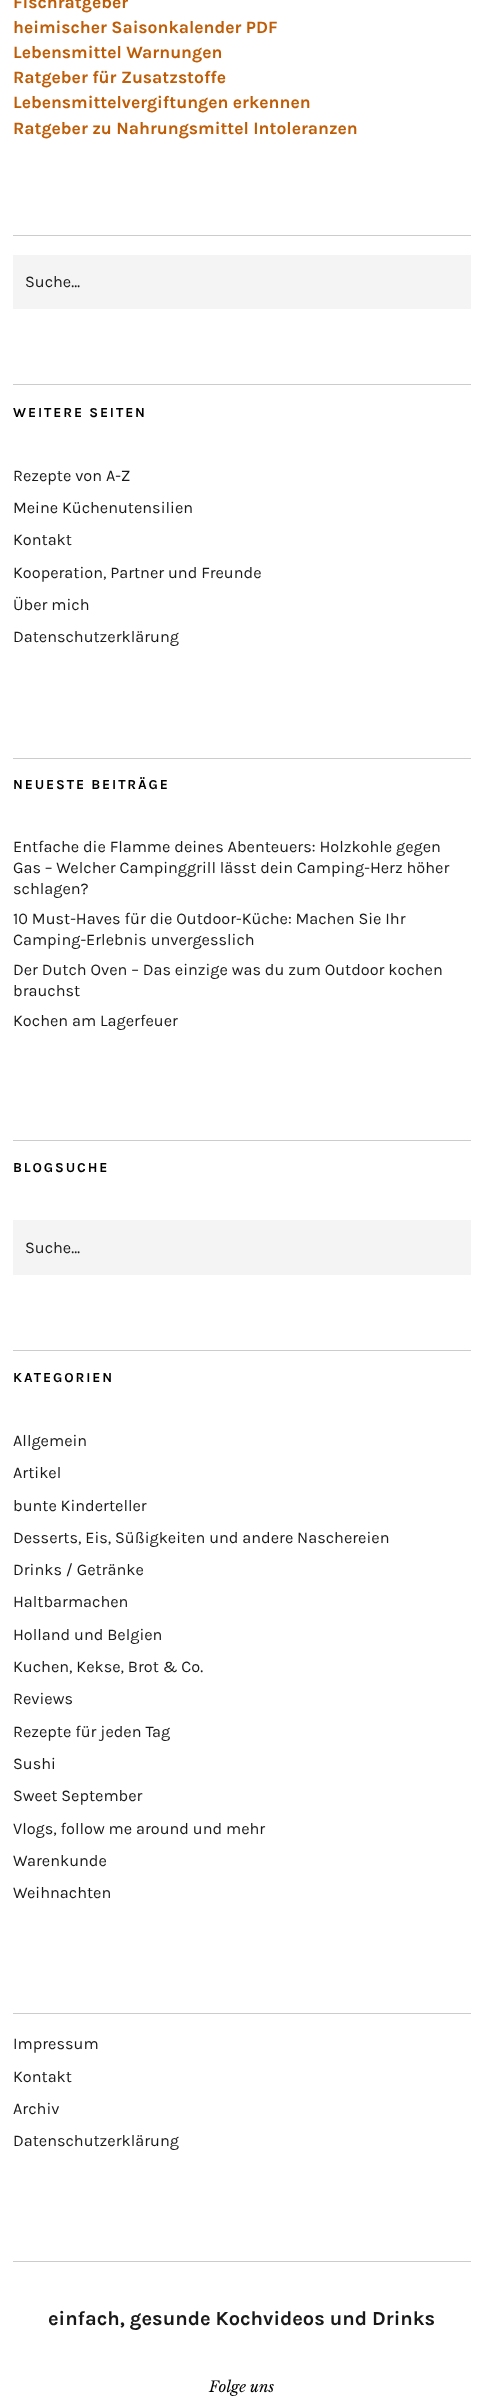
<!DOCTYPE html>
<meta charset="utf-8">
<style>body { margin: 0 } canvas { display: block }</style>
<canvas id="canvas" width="483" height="2403"></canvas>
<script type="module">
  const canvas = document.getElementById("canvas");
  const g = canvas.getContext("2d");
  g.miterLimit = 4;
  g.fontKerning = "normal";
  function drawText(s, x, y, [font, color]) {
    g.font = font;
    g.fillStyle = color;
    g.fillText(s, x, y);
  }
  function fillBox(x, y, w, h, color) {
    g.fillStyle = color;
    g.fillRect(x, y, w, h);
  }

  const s1 = ["bold 17.5px Karla", "#BF5C05"];
  const s2 = ["16.25px Karla", "#191919"];
  const s3 = ["bold 13.75px Karla", "#000000"];
  const s4 = ["bold 20px Karla", "#191919"];
  const s5 = ["italic 15px Libre Baskerville", "#000000"];

  fillBox(0, 0, 483, 2403, "#FFFFFF");
  fillBox(13, 235, 458, 1, "#CCCCCC");
  drawText("Fischratgeber", 13, 8, s1);
  drawText("heimischer Saisonkalender PDF", 13, 33, s1);
  drawText("Lebensmittel Warnungen", 13, 58, s1);
  drawText("Ratgeber für Zusatzstoffe", 13, 83, s1);
  drawText("Lebensmittelvergiftungen erkennen", 13, 108, s1);
  drawText("Ratgeber zu Nahrungsmittel Intoleranzen", 13, 134, s1);
  fillBox(13, 384, 458, 1, "#CCCCCC");
  fillBox(13, 255, 458, 54, "#F4F4F4");
  drawText("Suche…", 25, 287, s2);
  fillBox(13, 758, 458, 1, "#CCCCCC");
  g.letterSpacing = "1.9px";
  drawText("WEITERE SEITEN", 13, 417, s3);
  g.letterSpacing = "0px";
  drawText("Rezepte von A-Z", 13, 481, s2);
  drawText("Meine Küchenutensilien", 13, 513, s2);
  drawText("Kontakt", 13, 545, s2);
  drawText("Kooperation, Partner und Freunde", 13, 578, s2);
  drawText("Über mich", 13, 610, s2);
  drawText("Datenschutzerklärung", 13, 642, s2);
  g.letterSpacing = "1.9px";
  drawText("NEUESTE BEITRÄGE", 13, 789, s3);
  g.letterSpacing = "0px";
  drawText("Entfache die Flamme deines Abenteuers: Holzkohle gegen", 13, 852, s2);
  drawText("Gas – Welcher Campinggrill lässt dein Camping-Herz höher", 13, 873, s2);
  drawText("schlagen?", 13, 894, s2);
  drawText("10 Must-Haves für die Outdoor-Küche: Machen Sie Ihr", 13, 924, s2);
  drawText("Camping-Erlebnis unvergesslich", 13, 945, s2);
  drawText("Der Dutch Oven – Das einzige was du zum Outdoor kochen", 13, 975, s2);
  drawText("brauchst", 13, 996, s2);
  drawText("Kochen am Lagerfeuer", 13, 1026, s2);
  fillBox(13, 1140, 458, 1, "#CCCCCC");
  g.letterSpacing = "1.9px";
  drawText("BLOGSUCHE", 13, 1172, s3);
  fillBox(13, 1220, 458, 55, "#F4F4F4");
  g.letterSpacing = "0px";
  drawText("Suche…", 25, 1253, s2);
  fillBox(13, 1350, 458, 1, "#CCCCCC");
  g.letterSpacing = "1.9px";
  drawText("KATEGORIEN", 13, 1382, s3);
  g.letterSpacing = "0px";
  drawText("Allgemein", 13, 1446, s2);
  drawText("Artikel", 13, 1478, s2);
  drawText("bunte Kinderteller", 13, 1511, s2);
  drawText("Desserts, Eis, Süßigkeiten und andere Naschereien", 13, 1543, s2);
  drawText("Drinks / Getränke", 13, 1575, s2);
  drawText("Haltbarmachen", 13, 1607, s2);
  drawText("Holland und Belgien", 13, 1640, s2);
  drawText("Kuchen, Kekse, Brot & Co.", 13, 1672, s2);
  drawText("Reviews", 13, 1704, s2);
  drawText("Rezepte für jeden Tag", 13, 1737, s2);
  drawText("Sushi", 13, 1769, s2);
  drawText("Sweet September", 13, 1801, s2);
  drawText("Vlogs, follow me around und mehr", 13, 1834, s2);
  drawText("Warenkunde", 13, 1866, s2);
  drawText("Weihnachten", 13, 1898, s2);
  fillBox(13, 2013, 458, 1, "#CCCCCC");
  drawText("Impressum", 13, 2049, s2);
  drawText("Kontakt", 13, 2082, s2);
  drawText("Archiv", 13, 2114, s2);
  drawText("Datenschutzerklärung", 13, 2146, s2);
  fillBox(13, 2261, 458, 1, "#CCCCCC");
  drawText("einfach, gesunde Kochvideos und Drinks", 48, 2325, s4);
  drawText("Folge uns", 209, 2392, s5);
</script>
